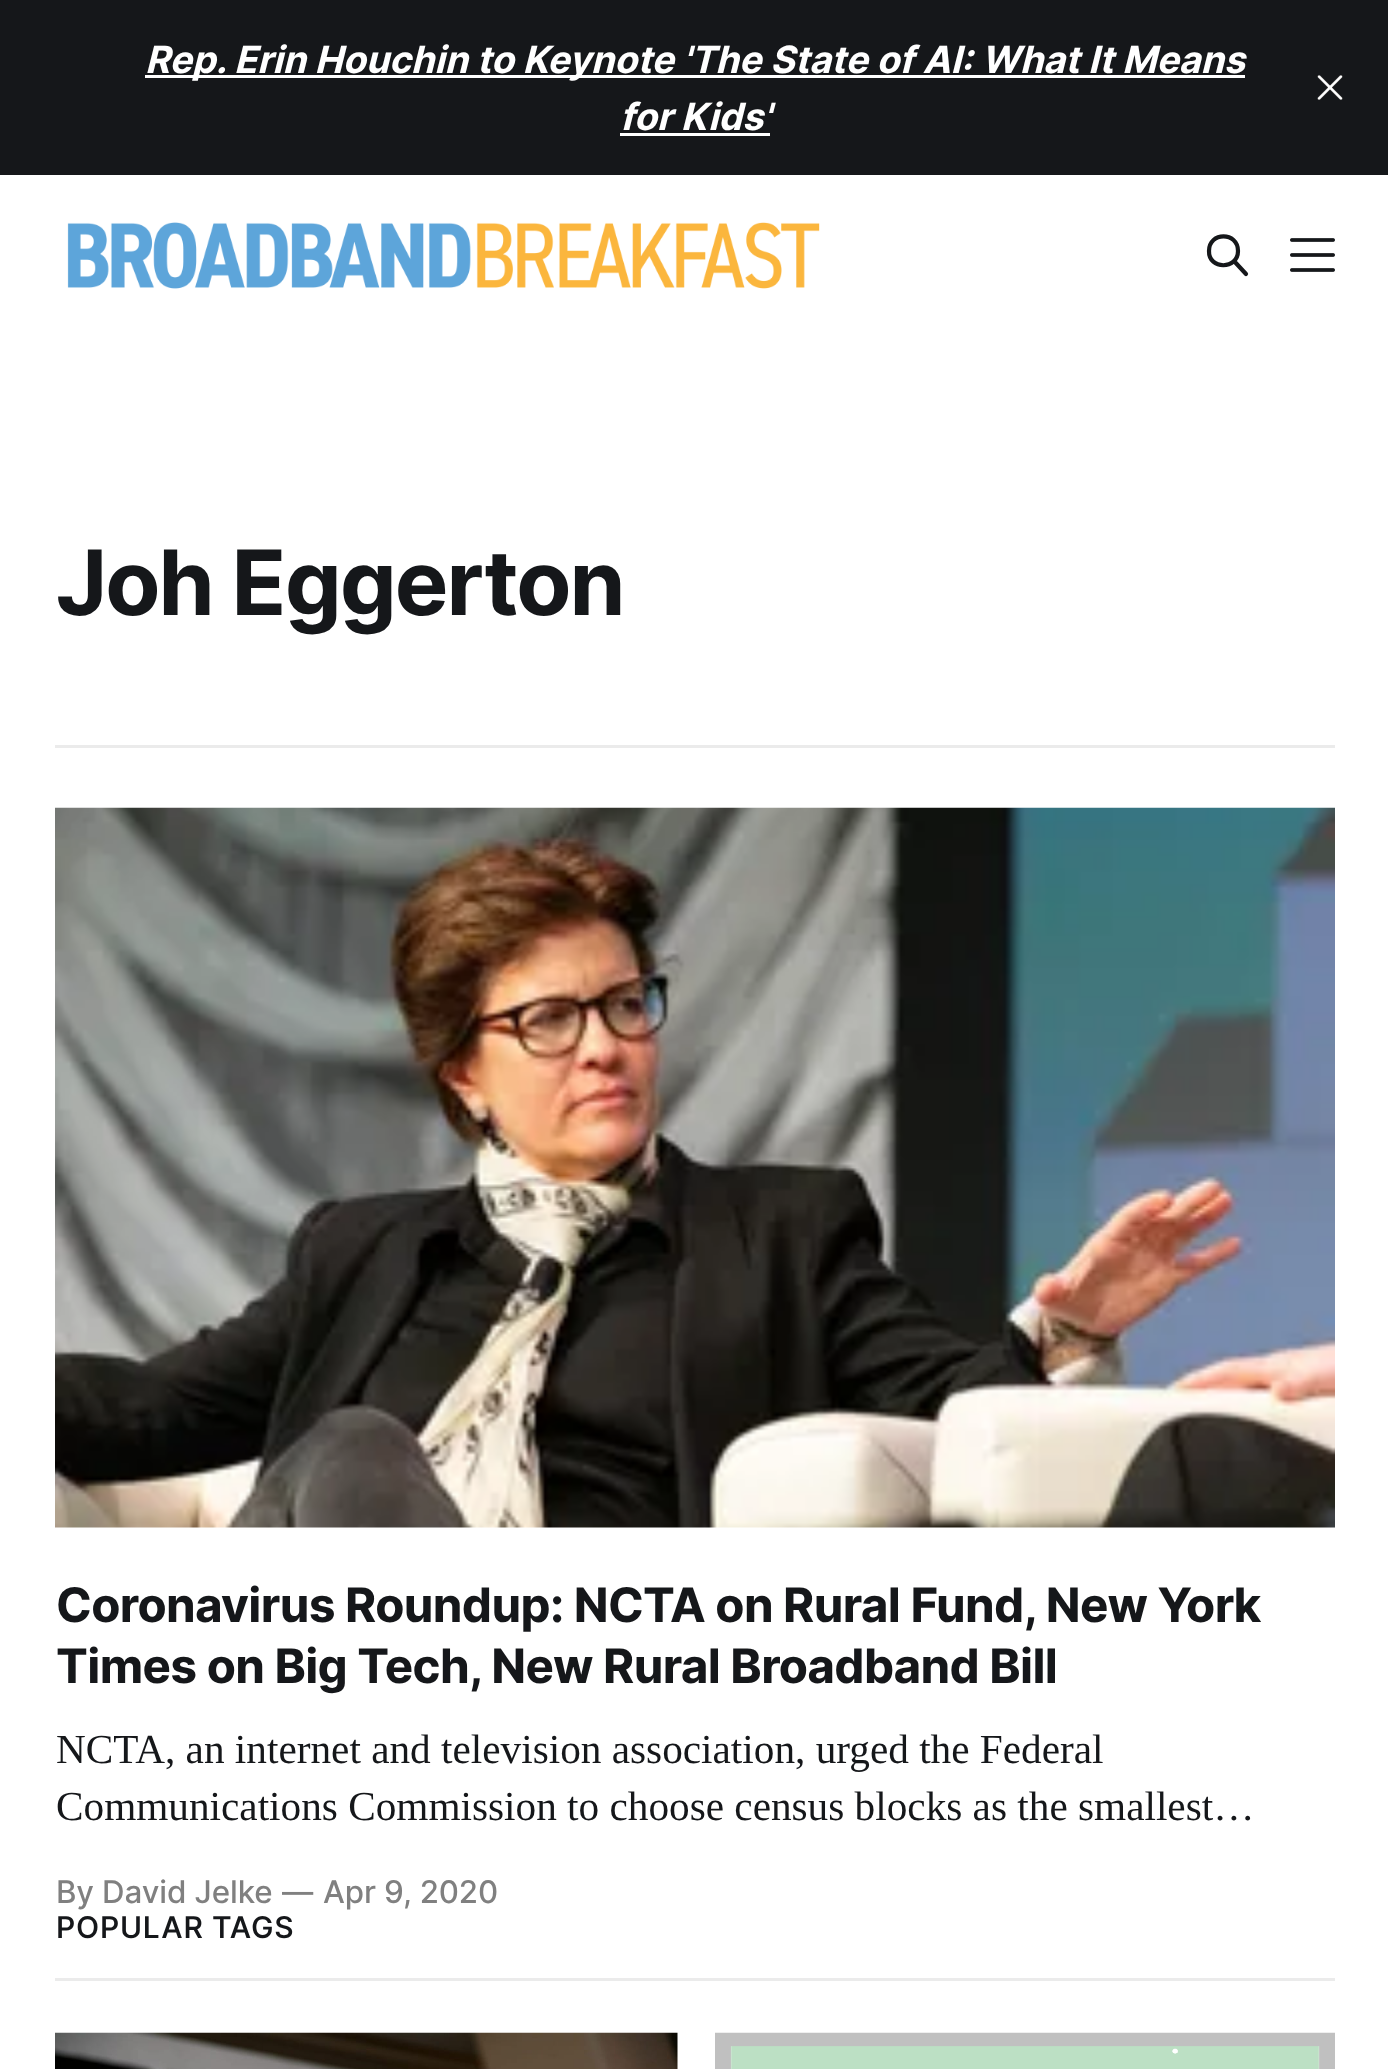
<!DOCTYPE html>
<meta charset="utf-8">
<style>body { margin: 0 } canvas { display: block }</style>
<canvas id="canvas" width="1388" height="2069"></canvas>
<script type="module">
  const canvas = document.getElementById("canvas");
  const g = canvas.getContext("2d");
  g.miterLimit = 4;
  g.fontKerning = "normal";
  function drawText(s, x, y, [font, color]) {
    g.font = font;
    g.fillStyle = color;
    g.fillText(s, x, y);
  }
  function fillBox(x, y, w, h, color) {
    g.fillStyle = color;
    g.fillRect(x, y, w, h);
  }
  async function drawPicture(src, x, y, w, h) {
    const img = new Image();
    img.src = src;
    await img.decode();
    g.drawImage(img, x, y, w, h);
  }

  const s1 = ["italic bold 37.5px Inter", "#FFFFFF"];
  const s2 = ["bold 90px Inter", "#15171A"];
  const s3 = ["bold 47.5px 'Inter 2'", "#15171A"];
  const s4 = ["41.25px Liberation Serif", "#15171A"];
  const s5 = ["500 31.25px 'Inter 2'", "#808080"];
  const s6 = ["500 30px Inter", "#15171A"];

  fillBox(0, 0, 1388, 2069, "#FFFFFF");
  fillBox(0, 0, 1388, 175, "#15171A");
  fillBox(145, 75, 1100, 3, "#FFFFFF");
  drawText("Rep. Erin Houchin to Keynote 'The State of AI: What It Means", 145, 73, s1);
  drawText("for Kids'", 620, 130, s1);
  fillBox(620, 133, 150, 3, "#FFFFFF");
  await drawPicture("pic1.png", 1317, 75, 26, 25);
  await drawPicture("pic2.png", 67, 222, 753, 67);
  g.beginPath();
  g.moveTo(1246, 274);
  g.lineTo(1234, 261);
  g.moveTo(1238, 251);
  g.bezierCurveTo(1238, 270, 1208.5, 270, 1209, 251);
  g.bezierCurveTo(1209, 231.5, 1238, 231.5, 1238, 251);
  g.closePath();
  g.strokeStyle = "#15171A";
  g.lineWidth = 4.2;
  g.lineCap = "round";
  g.lineJoin = "round";
  g.stroke();
  await drawPicture("pic3.png", 1290, 238, 45, 34);
  fillBox(55, 745, 1280, 3, "#EBEBEB");
  g.letterSpacing = "-2px";
  drawText("Joh Eggerton", 56, 615, s2);
  await drawPicture("pic4.png", 55, 807, 1280, 721);
  g.letterSpacing = "-0.65px";
  drawText("Coronavirus Roundup: NCTA on Rural Fund, New York", 56, 1622, s3);
  drawText("Times on Big Tech, New Rural Broadband Bill", 56, 1683, s3);
  g.letterSpacing = "0px";
  drawText("NCTA, an internet and television association, urged the Federal", 56, 1763, s4);
  drawText("Communications Commission to choose census blocks as the smallest…", 56, 1820, s4);
  g.letterSpacing = "-0.1px";
  drawText("By David Jelke", 56, 1903, s5);
  drawText("—", 282, 1903, s5);
  drawText("Apr 9, 2020", 323, 1903, s5);
  fillBox(55, 1978, 1280, 3, "#EBEBEB");
  g.letterSpacing = "0.75px";
  drawText("POPULAR TAGS", 56, 1938, s6);
  await drawPicture("pic5.png", 55, 2032, 623, 37);
  await drawPicture("pic6.png", 715, 2032, 620, 37);
</script>
